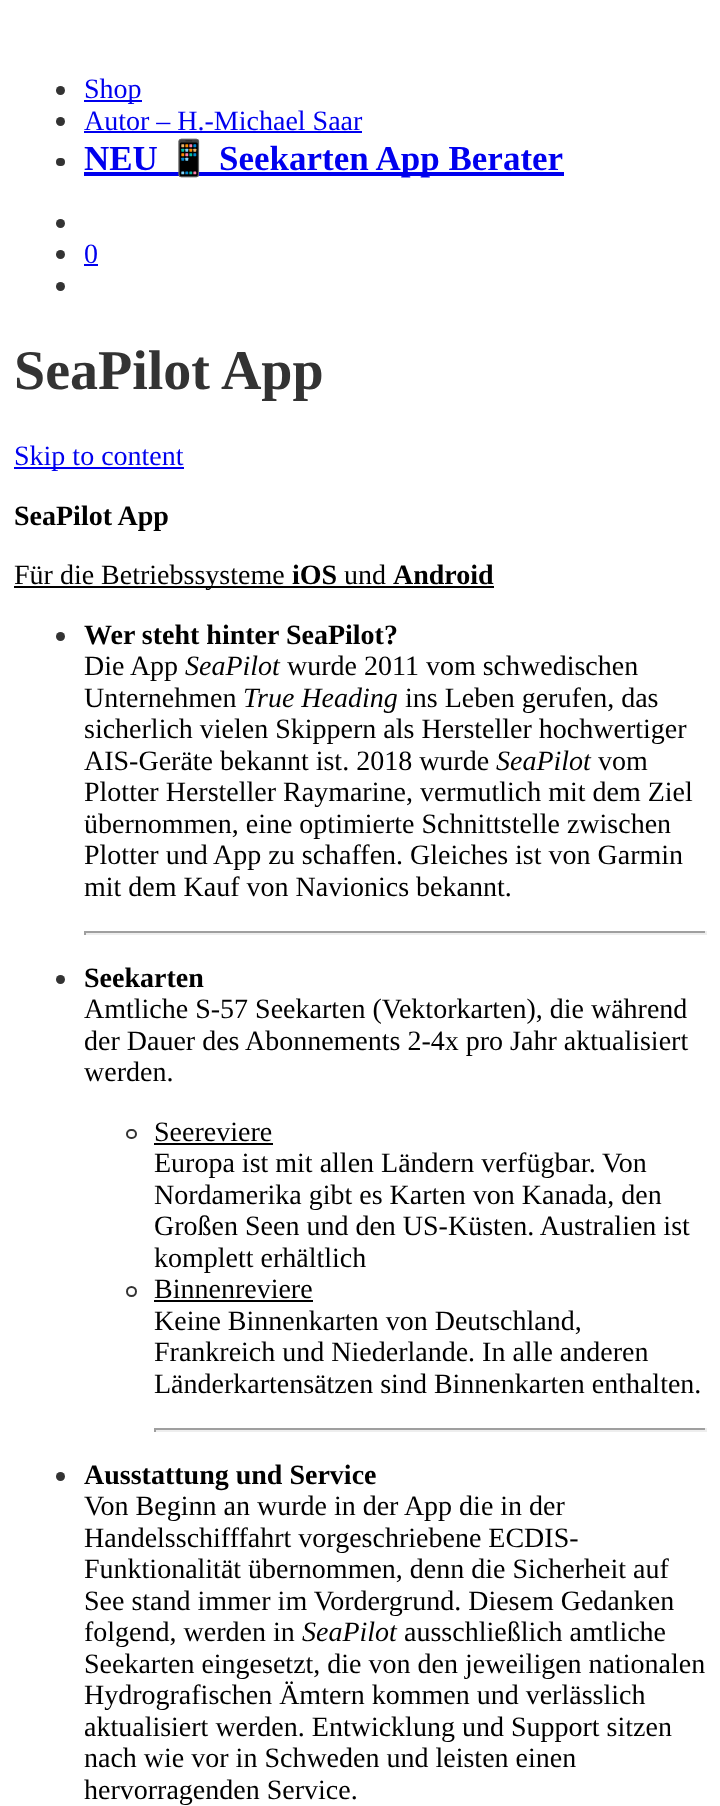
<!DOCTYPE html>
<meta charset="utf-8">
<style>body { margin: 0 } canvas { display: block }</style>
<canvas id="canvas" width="720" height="1806"></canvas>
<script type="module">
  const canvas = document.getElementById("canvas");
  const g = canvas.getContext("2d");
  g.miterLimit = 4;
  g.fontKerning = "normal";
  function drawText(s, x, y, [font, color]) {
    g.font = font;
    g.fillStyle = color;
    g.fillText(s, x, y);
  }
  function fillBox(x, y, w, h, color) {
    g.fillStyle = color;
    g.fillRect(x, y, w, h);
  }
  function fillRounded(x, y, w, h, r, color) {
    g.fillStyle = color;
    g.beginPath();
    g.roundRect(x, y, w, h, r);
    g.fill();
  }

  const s1 = ["28px Liberation Serif", "#0000EE"];
  const s2 = ["bold 35px Liberation Serif", "#0000EE"];
  const s3 = ["bold 35px Noto Color Emoji", "#0000EE"];
  const s4 = ["bold 56px Liberation Serif", "#333333"];
  const s5 = ["bold 28px Liberation Serif", "#000000"];
  const s6 = ["28px Liberation Serif", "#000000"];
  const s7 = ["italic 28px Liberation Serif", "#000000"];

  fillBox(0, 0, 720, 1806, "#FFFFFF");
  g.fillStyle = "#333333";
  g.beginPath();
  g.arc(60.5, 90.5, 4.5, 0, Math.PI * 2);
  g.fill();
  fillBox(84, 100, 58, 2, "#0000EE");
  drawText("Shop", 84, 98, s1);
  g.fillStyle = "#333333";
  g.beginPath();
  g.arc(60.5, 121.5, 4.5, 0, Math.PI * 2);
  g.fill();
  drawText("Autor – H.-Michael Saar", 84, 130, s1);
  fillBox(84, 131, 278, 2, "#0000EE");
  fillRounded(56, 158, 9, 8, 4, "#333333");
  drawText("NEU", 84, 170, s2);
  fillBox(84, 172, 480, 4, "#0000EE");
  drawText("📱", 167, 170, s3);
  drawText("Seekarten App Berater", 219, 170, s2);
  g.fillStyle = "#333333";
  g.beginPath();
  g.arc(60.5, 223.5, 4.5, 0, Math.PI * 2);
  g.fill();
  g.beginPath();
  g.arc(60.5, 254.5, 4.5, 0, Math.PI * 2);
  g.fill();
  drawText("0", 84, 263, s1);
  fillBox(84, 264, 14, 2, "#0000EE");
  g.fillStyle = "#333333";
  g.beginPath();
  g.arc(60.5, 286.5, 4.5, 0, Math.PI * 2);
  g.fill();
  drawText("SeaPilot App", 14, 389, s4);
  fillBox(14, 467, 170, 2, "#0000EE");
  drawText("Skip to content", 14, 465, s1);
  drawText("SeaPilot App", 14, 525, s5);
  fillBox(14, 586, 480, 2, "#000000");
  drawText("Für die Betriebssysteme", 14, 584, s6);
  drawText("iOS", 292, 584, s5);
  drawText("und", 344, 584, s6);
  drawText("Android", 393, 584, s5);
  g.fillStyle = "#333333";
  g.beginPath();
  g.arc(60.5, 636.5, 4.5, 0, Math.PI * 2);
  g.fill();
  drawText("Wer steht hinter SeaPilot?", 84, 644, s5);
  drawText("Die App", 84, 675, s6);
  drawText("SeaPilot", 185, 675, s7);
  drawText("wurde 2011 vom schwedischen", 287, 675, s6);
  drawText("Unternehmen", 84, 707, s6);
  drawText("True Heading", 243, 707, s7);
  drawText("ins Leben gerufen, das", 405, 707, s6);
  drawText("sicherlich vielen Skippern als Hersteller hochwertiger", 84, 738, s6);
  drawText("AIS-Geräte bekannt ist. 2018 wurde", 84, 770, s6);
  drawText("SeaPilot", 496, 770, s7);
  drawText("vom", 598, 770, s6);
  drawText("Plotter Hersteller Raymarine, vermutlich mit dem Ziel", 84, 801, s6);
  drawText("übernommen, eine optimierte Schnittstelle zwischen", 84, 833, s6);
  drawText("Plotter und App zu schaffen. Gleiches ist von Garmin", 84, 864, s6);
  drawText("mit dem Kauf von Navionics bekannt.", 84, 896, s6);
  fillBox(84, 931, 623, 2, "#9F9F9F");
  fillBox(705, 931, 2, 4, "#EEEEEE");
  fillBox(84, 933, 623, 2, "#EEEEEE");
  fillBox(84, 931, 2, 4, "#9F9F9F");
  g.fillStyle = "#333333";
  g.beginPath();
  g.arc(60.5, 979.5, 4.5, 0, Math.PI * 2);
  g.fill();
  drawText("Seekarten", 84, 987, s5);
  drawText("Amtliche S-57 Seekarten (Vektorkarten), die während", 84, 1018, s6);
  drawText("der Dauer des Abonnements 2-4x pro Jahr aktualisiert", 84, 1050, s6);
  drawText("werden.", 84, 1081, s6);
  g.beginPath();
  g.roundRect(127, 1130, 9, 8, 4);
  g.strokeStyle = "#333333";
  g.lineWidth = 2;
  g.stroke();
  drawText("Seereviere", 154, 1141, s6);
  fillBox(154, 1143, 119, 2, "#000000");
  drawText("Europa ist mit allen Ländern verfügbar. Von", 154, 1172, s6);
  drawText("Nordamerika gibt es Karten von Kanada, den", 154, 1204, s6);
  drawText("Großen Seen und den US-Küsten. Australien ist", 154, 1235, s6);
  drawText("komplett erhältlich", 154, 1267, s6);
  g.beginPath();
  g.arc(131.5, 1291.5, 4.5, 0, Math.PI * 2);
  g.stroke();
  drawText("Binnenreviere", 154, 1298, s6);
  fillBox(154, 1300, 159, 2, "#000000");
  drawText("Keine Binnenkarten von Deutschland,", 154, 1330, s6);
  drawText("Frankreich und Niederlande. In alle anderen", 154, 1361, s6);
  drawText("Länderkartensätzen sind Binnenkarten enthalten.", 154, 1393, s6);
  fillBox(154, 1428, 553, 2, "#9F9F9F");
  fillBox(705, 1428, 2, 4, "#EEEEEE");
  fillBox(154, 1430, 553, 2, "#EEEEEE");
  fillBox(154, 1428, 2, 4, "#9F9F9F");
  g.fillStyle = "#333333";
  g.beginPath();
  g.arc(60.5, 1476.5, 4.5, 0, Math.PI * 2);
  g.fill();
  drawText("Ausstattung und Service", 84, 1484, s5);
  drawText("Von Beginn an wurde in der App die in der", 84, 1515, s6);
  drawText("Handelsschifffahrt vorgeschriebene ECDIS-", 84, 1547, s6);
  drawText("Funktionalität übernommen, denn die Sicherheit auf", 84, 1578, s6);
  drawText("See stand immer im Vordergrund. Diesem Gedanken", 84, 1610, s6);
  drawText("folgend, werden in", 84, 1641, s6);
  drawText("SeaPilot", 302, 1641, s7);
  drawText("ausschließlich amtliche", 404, 1641, s6);
  drawText("Seekarten eingesetzt, die von den jeweiligen nationalen", 84, 1673, s6);
  drawText("Hydrografischen Ämtern kommen und verlässlich", 84, 1704, s6);
  drawText("aktualisiert werden. Entwicklung und Support sitzen", 84, 1736, s6);
  drawText("nach wie vor in Schweden und leisten einen", 84, 1767, s6);
  drawText("hervorragenden Service.", 84, 1799, s6);
</script>
